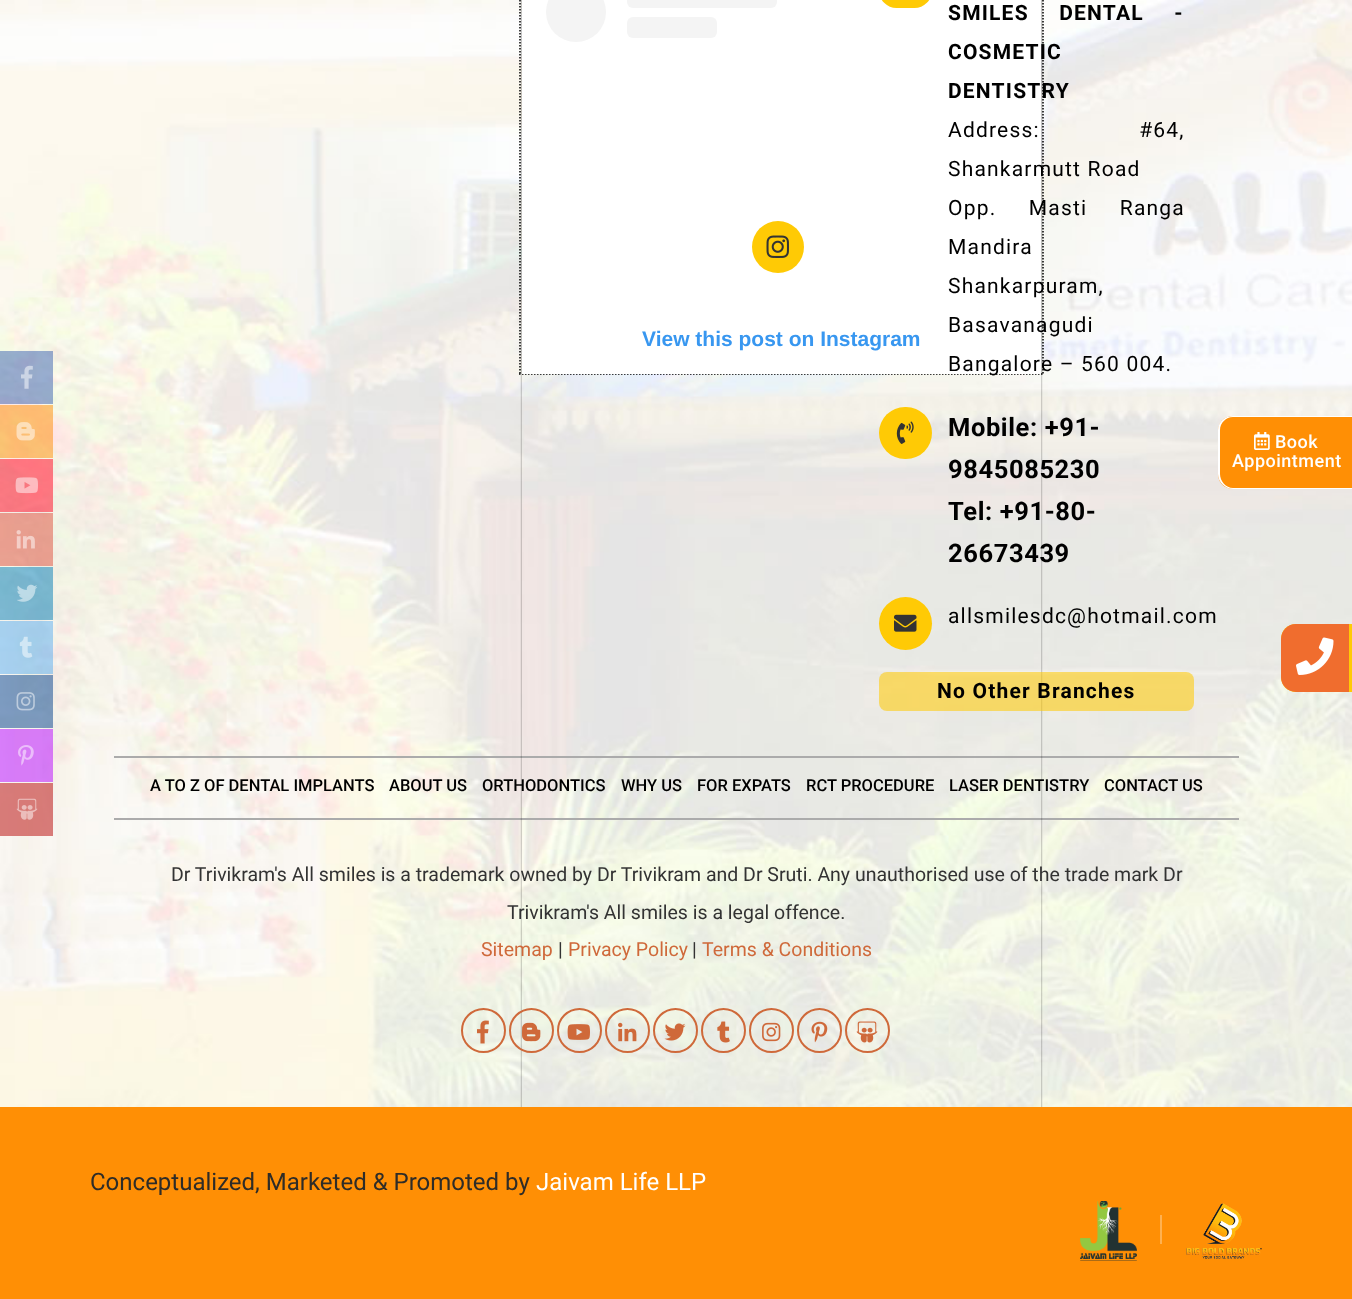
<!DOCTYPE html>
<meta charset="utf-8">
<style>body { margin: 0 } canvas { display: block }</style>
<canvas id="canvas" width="1352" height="1299"></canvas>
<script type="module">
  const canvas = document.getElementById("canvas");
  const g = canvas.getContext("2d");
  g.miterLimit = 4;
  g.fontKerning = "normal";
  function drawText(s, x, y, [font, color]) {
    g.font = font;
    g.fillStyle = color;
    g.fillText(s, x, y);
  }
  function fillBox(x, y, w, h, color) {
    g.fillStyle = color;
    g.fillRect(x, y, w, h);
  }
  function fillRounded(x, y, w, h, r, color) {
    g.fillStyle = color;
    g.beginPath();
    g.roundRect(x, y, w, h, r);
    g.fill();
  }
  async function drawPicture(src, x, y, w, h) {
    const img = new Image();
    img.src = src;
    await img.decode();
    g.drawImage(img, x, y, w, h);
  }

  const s1 = ["bold 21px Liberation Sans", "#3897F0"];
  const s2 = ["bold 21px Roboto", "#000000"];
  const s3 = ["21px Roboto", "#000000"];
  const s4 = ["bold 25.5px Roboto", "#000000"];
  const s5 = ["500 16.5px Roboto", "#000000"];
  const s6 = ["19.5px Roboto", "#333333"];
  const s7 = ["19.5px Roboto", "#CF693A"];
  const s8 = ["500 18px Roboto", "#FFFFFF"];
  const s9 = ["24px Roboto", "#2E2C28"];
  const s10 = ["24px Roboto", "#FFFFFF"];

  fillBox(0, 0, 1352, 1299, "#FFFFFF");
  await drawPicture("pic10.png", 0, 0, 1352, 1107);
  fillBox(0, 351, 53, 53, "rgba(54, 93, 176, 0.5)");
  await drawPicture("pic1.png", 21, 365, 12, 24);
  fillBox(0, 405, 53, 53, "rgba(253, 140, 0, 0.5)");
  await drawPicture("pic2.png", 16, 422, 19, 19);
  fillBox(0, 459, 53, 53, "rgba(255, 0, 27, 0.5)");
  await drawPicture("pic3.png", 15, 477, 23, 17);
  fillBox(0, 513, 53, 53, "rgba(222, 75, 57, 0.5)");
  await drawPicture("pic4.png", 16, 530, 19, 19);
  fillBox(0, 567, 53, 53, "rgba(0, 123, 182, 0.5)");
  await drawPicture("pic5.png", 17, 584, 21, 18);
  fillBox(0, 621, 53, 53, "rgba(85, 172, 239, 0.5)");
  await drawPicture("pic6.png", 19, 636, 14, 22);
  fillBox(0, 675, 53, 53, "rgba(0, 62, 140, 0.5)");
  await drawPicture("pic7.png", 16, 692, 19, 19);
  fillBox(0, 729, 53, 53, "rgba(181, 1, 255, 0.5)");
  await drawPicture("pic8.png", 18, 745, 16, 21);
  fillBox(0, 783, 53, 53, "rgba(181, 0, 0, 0.5)");
  await drawPicture("pic9.png", 16, 798, 22, 22);
  g.beginPath();
  g.moveTo(1043, -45);
  g.lineTo(1043, 375);
  g.strokeStyle = "#000000";
  g.lineWidth = 1.5;
  g.setLineDash([1.5, 1.5]);
  g.stroke();
  g.beginPath();
  g.moveTo(519, 374);
  g.lineTo(1044, 374);
  g.stroke();
  g.beginPath();
  g.moveTo(520, -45);
  g.lineTo(520, 375);
  g.stroke();
  fillBox(114, 756, 1125, 2, "#ABABAB");
  fillBox(114, 818, 1125, 2, "#ABABAB");
  g.save();
  g.beginPath();
  g.rect(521, 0, 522, 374);
  g.clip();
  g.fillStyle = "rgba(0, 0, 0, 0.15)";
  g.filter = "blur(7.5px)";
  g.beginPath();
  g.roundRect(522, -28, 519, 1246, 5);
  g.fill();
  g.filter = "none";
  g.restore();
  g.save();
  g.beginPath();
  g.moveTo(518, 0);
  g.lineTo(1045, 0);
  g.lineTo(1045, 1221);
  g.lineTo(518, 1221);
  g.closePath();
  g.moveTo(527, -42);
  g.lineTo(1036, -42);
  g.bezierCurveTo(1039, -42, 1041, -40, 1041, -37);
  g.lineTo(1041, 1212);
  g.bezierCurveTo(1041, 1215, 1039, 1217, 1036, 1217);
  g.lineTo(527, 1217);
  g.bezierCurveTo(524, 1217, 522, 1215, 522, 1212);
  g.lineTo(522, -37);
  g.bezierCurveTo(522, -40, 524, -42, 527, -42);
  g.closePath();
  g.clip("evenodd");
  g.fillStyle = "rgba(0, 0, 0, 0.5)";
  g.filter = "blur(1px)";
  g.beginPath();
  g.roundRect(522, -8, 519, 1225, 5);
  g.fill();
  g.filter = "none";
  g.restore();
  fillBox(522, 0, 519, 374, "#FFFFFF");
  g.fillStyle = "#F4F4F4";
  g.beginPath();
  g.arc(576, 12, 30, 0, Math.PI * 2);
  g.fill();
  fillRounded(627, -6, 150, 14, 6, "#F4F4F4");
  fillRounded(627, 17, 90, 21, 6, "#F4F4F4");
  g.fillStyle = "#FFCA05";
  g.beginPath();
  g.arc(778, 247, 26, 0, Math.PI * 2);
  g.fill();
  await drawPicture("pic11.png", 766, 235, 23, 23);
  drawText("View this post on Instagram", 642, 346, s1);
  fillRounded(879, -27, 53, 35, 26.5, "#FFCA05");
  g.letterSpacing = "1.2px";
  g.wordSpacing = "24px";
  drawText("SMILES DENTAL -", 948, 20, s2);
  g.wordSpacing = "0px";
  drawText("COSMETIC", 948, 59, s2);
  drawText("DENTISTRY", 948, 98, s2);
  g.wordSpacing = "93px";
  drawText("Address: #64,", 948, 137, s3);
  g.wordSpacing = "0px";
  drawText("Shankarmutt Road", 948, 176, s3);
  g.wordSpacing = "26px";
  drawText("Opp. Masti Ranga", 948, 215, s3);
  g.wordSpacing = "0px";
  drawText("Mandira", 948, 254, s3);
  drawText("Shankarpuram,", 948, 293, s3);
  drawText("Basavanagudi", 948, 332, s3);
  drawText("Bangalore – 560 004.", 948, 371, s3);
  fillRounded(879, 407, 53, 52, 26, "#FFCA05");
  await drawPicture("pic12.png", 896, 421, 18, 23);
  g.letterSpacing = "0.6px";
  drawText("Mobile: +91-", 948, 436, s4);
  drawText("9845085230", 948, 478, s4);
  drawText("Tel: +91-80-", 948, 520, s4);
  drawText("26673439", 948, 562, s4);
  g.fillStyle = "#FFCA05";
  g.beginPath();
  g.arc(905.5, 623.5, 26.5, 0, Math.PI * 2);
  g.fill();
  await drawPicture("pic13.png", 894, 614, 23, 18);
  g.letterSpacing = "1.2px";
  drawText("allsmilesdc@hotmail.com", 948, 623, s3);
  fillRounded(879, 672, 315, 39, 8, "rgba(255, 202, 5, 0.57)");
  drawText("No Other Branches", 937, 698, s2);
  g.letterSpacing = "0px";
  drawText("A TO Z OF DENTAL IMPLANTS", 150, 791, s5);
  drawText("ABOUT US", 389, 791, s5);
  drawText("ORTHODONTICS", 482, 791, s5);
  drawText("WHY US", 621, 791, s5);
  drawText("FOR EXPATS", 697, 791, s5);
  drawText("RCT PROCEDURE", 806, 791, s5);
  drawText("LASER DENTISTRY", 949, 791, s5);
  drawText("CONTACT US", 1104, 791, s5);
  drawText("Dr Trivikram's All smiles is a trademark owned by Dr Trivikram and Dr Sruti. Any unauthorised use of the trade mark Dr", 171, 881, s6);
  drawText("Trivikram's All smiles is a legal offence.", 507, 919, s6);
  drawText("Sitemap", 481, 956, s7);
  drawText("|", 558, 956, s6);
  drawText("Privacy Policy", 568, 956, s7);
  drawText("|", 692, 956, s6);
  drawText("Terms & Conditions", 702, 956, s7);
  g.beginPath();
  g.arc(483.5, 1030.5, 21.5, 0, Math.PI * 2);
  g.strokeStyle = "#CF693A";
  g.lineWidth = 2;
  g.setLineDash([]);
  g.stroke();
  await drawPicture("pic14.png", 477, 1020, 12, 24);
  g.beginPath();
  g.arc(531.5, 1030.5, 21.5, 0, Math.PI * 2);
  g.stroke();
  await drawPicture("pic15.png", 522, 1022, 19, 20);
  g.beginPath();
  g.arc(579.5, 1030.5, 21.5, 0, Math.PI * 2);
  g.stroke();
  await drawPicture("pic16.png", 567, 1024, 23, 16);
  g.beginPath();
  g.arc(627.5, 1030.5, 21.5, 0, Math.PI * 2);
  g.stroke();
  await drawPicture("pic17.png", 618, 1022, 19, 20);
  g.beginPath();
  g.arc(675.5, 1030.5, 21.5, 0, Math.PI * 2);
  g.stroke();
  await drawPicture("pic18.png", 664, 1023, 22, 18);
  g.beginPath();
  g.arc(723.5, 1030.5, 21.5, 0, Math.PI * 2);
  g.stroke();
  await drawPicture("pic19.png", 717, 1021, 13, 22);
  g.beginPath();
  g.arc(771.5, 1030.5, 21.5, 0, Math.PI * 2);
  g.stroke();
  await drawPicture("pic20.png", 762, 1022, 19, 20);
  g.beginPath();
  g.arc(819.5, 1030.5, 21.5, 0, Math.PI * 2);
  g.stroke();
  await drawPicture("pic21.png", 811, 1021, 17, 22);
  g.beginPath();
  g.arc(867.5, 1030.5, 21.5, 0, Math.PI * 2);
  g.stroke();
  await drawPicture("pic22.png", 856, 1021, 22, 22);
  g.fillStyle = "#FF8F05";
  g.beginPath();
  g.moveTo(1233, 416);
  g.lineTo(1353, 416);
  g.lineTo(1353, 489);
  g.lineTo(1233, 489);
  g.bezierCurveTo(1224.5, 489, 1218, 482.5, 1218, 474);
  g.lineTo(1218, 431);
  g.bezierCurveTo(1218, 422.5, 1224.5, 416, 1233, 416);
  g.closePath();
  g.fill();
  g.fillStyle = "#FFFFFF";
  g.beginPath();
  g.moveTo(1233, 416);
  g.lineTo(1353, 416);
  g.lineTo(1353, 489);
  g.lineTo(1233, 489);
  g.bezierCurveTo(1225, 489, 1218, 482, 1218, 474);
  g.lineTo(1218, 430);
  g.bezierCurveTo(1218, 422, 1225, 416, 1233, 416);
  g.closePath();
  g.moveTo(1233, 417);
  g.lineTo(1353, 417);
  g.lineTo(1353, 488);
  g.lineTo(1233, 488);
  g.bezierCurveTo(1226, 488, 1220, 481, 1220, 474);
  g.lineTo(1220, 430);
  g.bezierCurveTo(1220, 423, 1226, 417, 1233, 417);
  g.closePath();
  g.fill("evenodd");
  await drawPicture("pic23.png", 1254, 432, 16, 18);
  g.letterSpacing = "0.5px";
  drawText("Book", 1275, 448, s8);
  drawText("Appointment", 1232, 467, s8);
  g.fillStyle = "#FFCA05";
  g.beginPath();
  g.moveTo(1296, 624);
  g.lineTo(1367, 624);
  g.lineTo(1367, 692);
  g.lineTo(1296, 692);
  g.bezierCurveTo(1287.5, 692, 1281, 685.5, 1281, 677);
  g.lineTo(1281, 639);
  g.bezierCurveTo(1281, 630.5, 1287.5, 624, 1296, 624);
  g.closePath();
  g.fill();
  g.fillStyle = "#F06D2E";
  g.beginPath();
  g.roundRect(1281, 624, 68, 68, [15, 0, 0, 15]);
  g.fill();
  await drawPicture("pic24.png", 1296, 637, 38, 38);
  fillBox(0, 1107, 1352, 192, "#FF8F05");
  g.letterSpacing = "0px";
  drawText("Conceptualized, Marketed & Promoted by", 90, 1190, s9);
  drawText("Jaivam Life LLP", 536, 1190, s10);
  await drawPicture("pic25.png", 1080, 1201, 57, 60);
  fillBox(1160, 1215, 2, 29, "#FFB150");
  await drawPicture("pic26.png", 1186, 1203, 76, 56);
</script>
